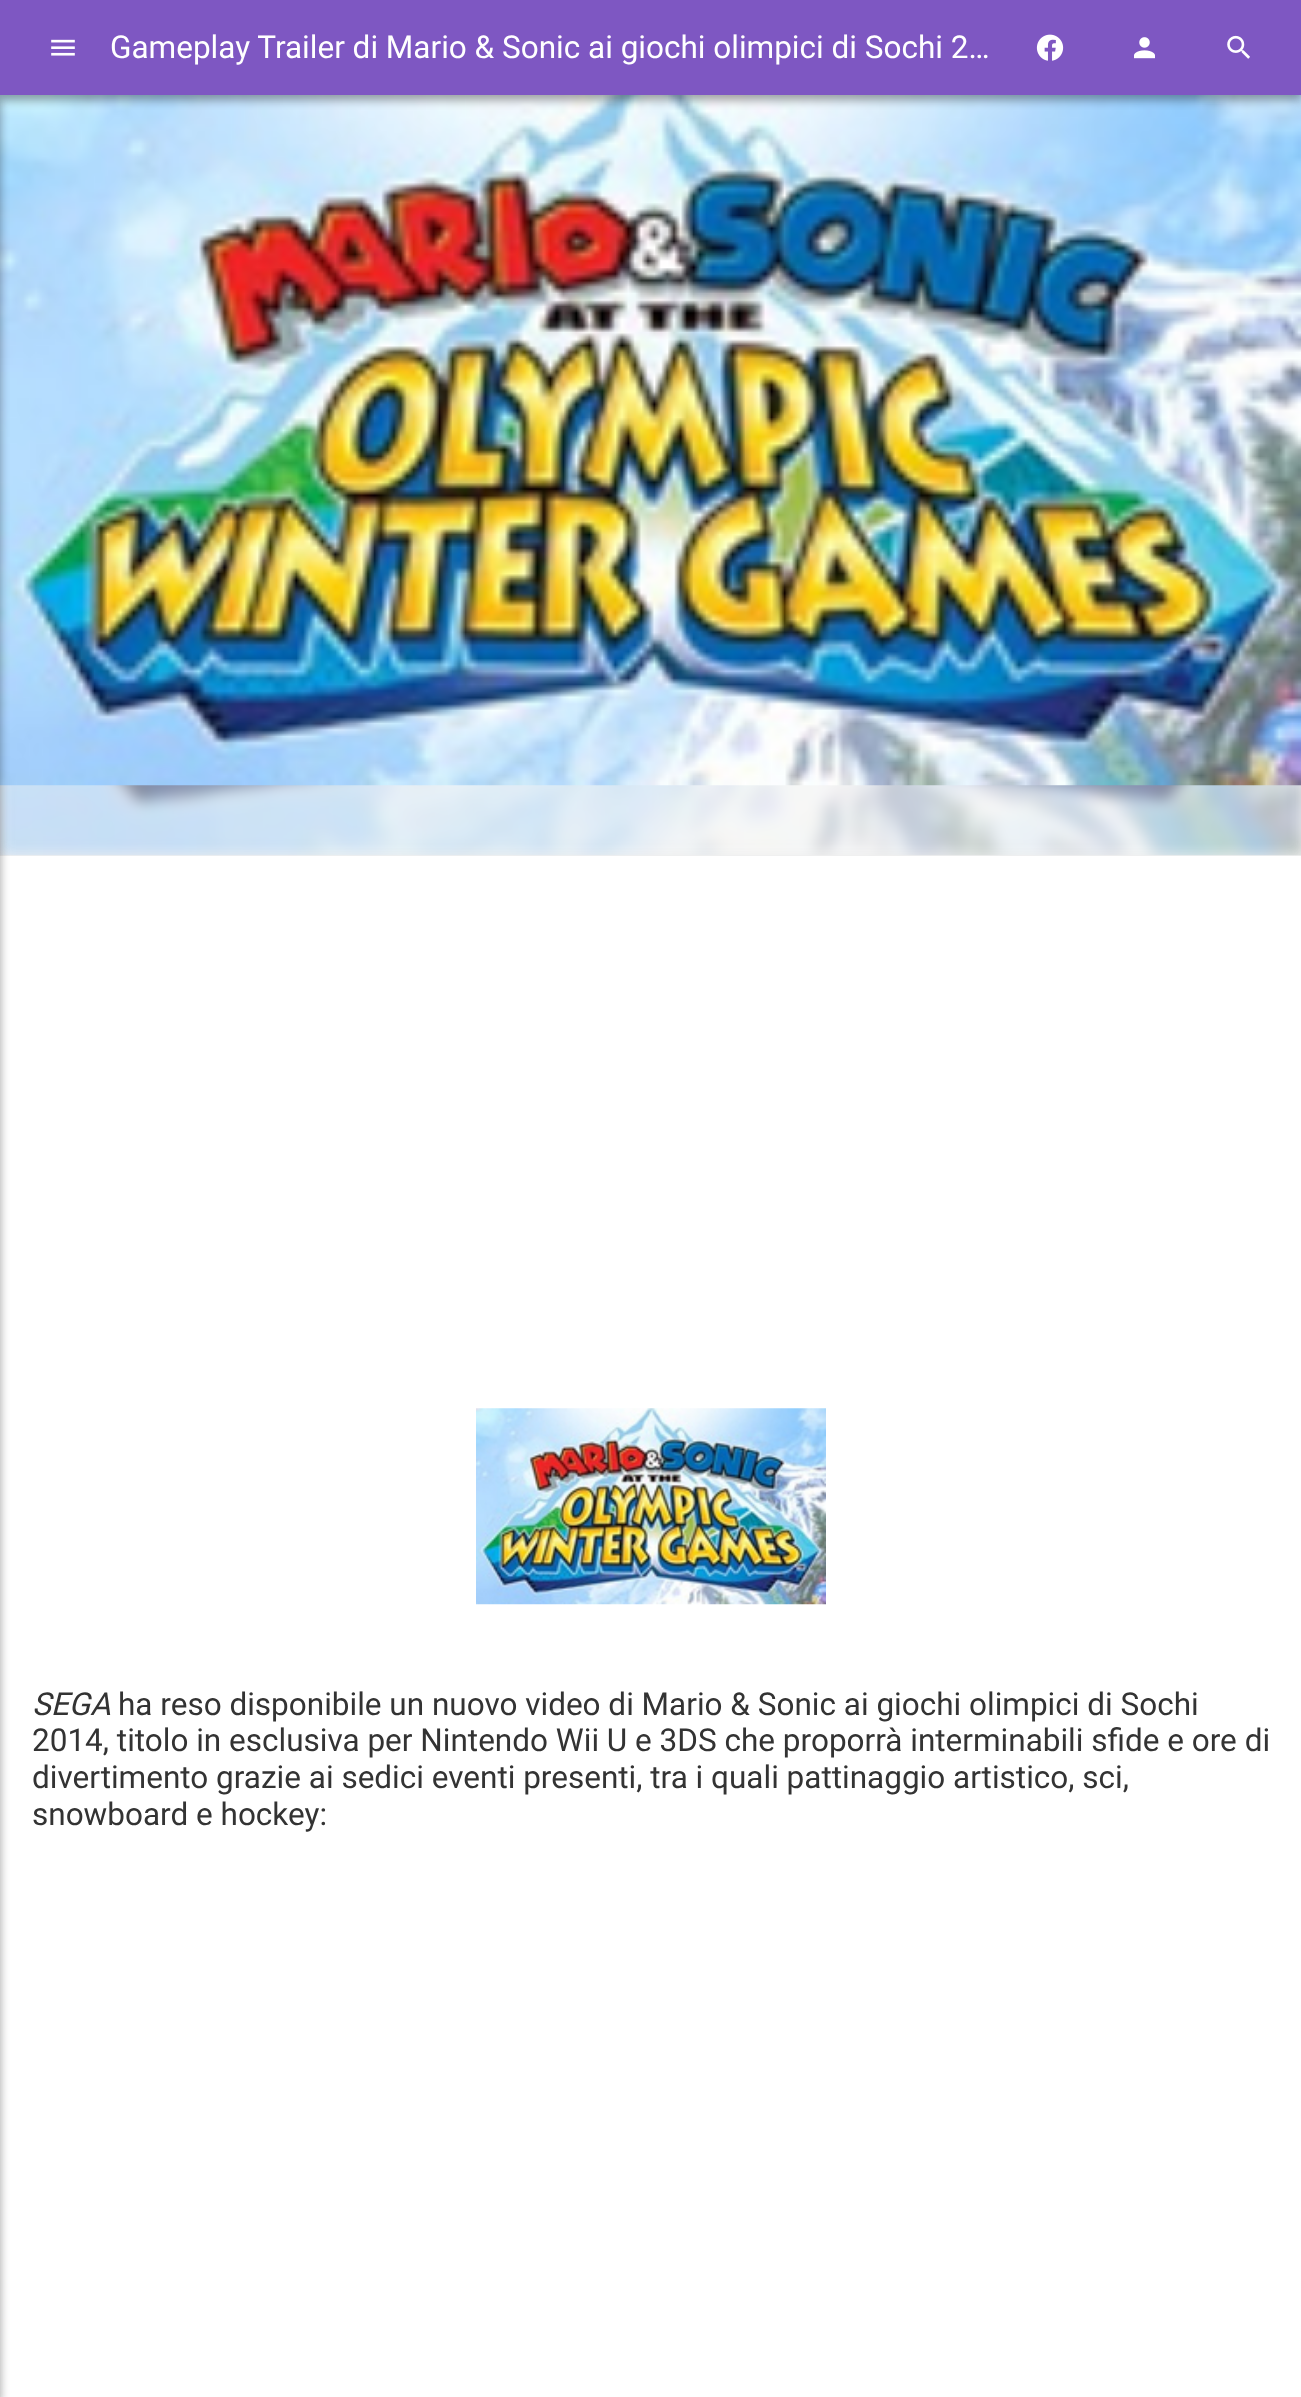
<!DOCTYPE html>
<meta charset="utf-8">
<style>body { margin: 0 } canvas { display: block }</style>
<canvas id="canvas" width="1301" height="2397"></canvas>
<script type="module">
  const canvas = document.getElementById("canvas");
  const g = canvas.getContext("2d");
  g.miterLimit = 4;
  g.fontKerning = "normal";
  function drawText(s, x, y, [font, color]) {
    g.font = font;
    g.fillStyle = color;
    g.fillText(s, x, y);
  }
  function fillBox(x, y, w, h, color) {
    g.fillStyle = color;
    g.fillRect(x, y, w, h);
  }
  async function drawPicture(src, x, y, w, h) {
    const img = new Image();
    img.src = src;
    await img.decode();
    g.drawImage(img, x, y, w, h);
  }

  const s1 = ["31.5px Roboto", "#FFFFFF"];
  const s2 = ["italic 31.5px Roboto", "#333333"];
  const s3 = ["31.5px Roboto", "#333333"];

  fillBox(0, 0, 1301, 2397, "#FFFFFF");
  fillBox(0, 785, 1301, 71, "#F0F0F0");
  await drawPicture("pic6.png", 0, 785, 1301, 71);
  await drawPicture("pic5.png", 0, 95, 1301, 691);
  g.fillStyle = "rgba(0, 0, 0, 0.23)";
  g.filter = "blur(5px)";
  g.beginPath();
  g.rect(-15, 5, 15, 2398);
  g.fill();
  g.filter = "none";
  g.fillStyle = "rgba(0, 0, 0, 0.16)";
  g.filter = "blur(5px)";
  g.beginPath();
  g.rect(-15, 5, 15, 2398);
  g.fill();
  g.filter = "none";
  g.fillStyle = "rgba(0, 0, 0, 0.23)";
  g.filter = "blur(5px)";
  g.beginPath();
  g.rect(0, 5, 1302, 95);
  g.fill();
  g.filter = "none";
  g.fillStyle = "rgba(0, 0, 0, 0.16)";
  g.filter = "blur(5px)";
  g.beginPath();
  g.rect(0, 5, 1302, 95);
  g.fill();
  g.filter = "none";
  fillBox(0, 0, 1301, 95, "#7E57C2");
  await drawPicture("pic1.png", 51, 39, 24, 17);
  drawText("Gameplay Trailer di Mario & Sonic ai giochi olimpici di Sochi 2…", 110, 58, s1);
  await drawPicture("pic2.png", 1036, 34, 28, 27);
  await drawPicture("pic3.png", 1134, 37, 21, 22);
  await drawPicture("pic4.png", 1227, 35, 23, 24);
  await drawPicture("pic7.png", 476, 1408, 350, 197);
  drawText("SEGA", 32, 1715, s2);
  drawText("ha reso disponibile un nuovo video di Mario & Sonic ai giochi olimpici di Sochi", 118, 1715, s3);
  drawText("2014, titolo in esclusiva per Nintendo Wii U e 3DS che proporrà interminabili sfide e ore di", 32, 1751, s3);
  drawText("divertimento grazie ai sedici eventi presenti, tra i quali pattinaggio artistico, sci,", 32, 1788, s3);
  drawText("snowboard e hockey:", 32, 1825, s3);
</script>
